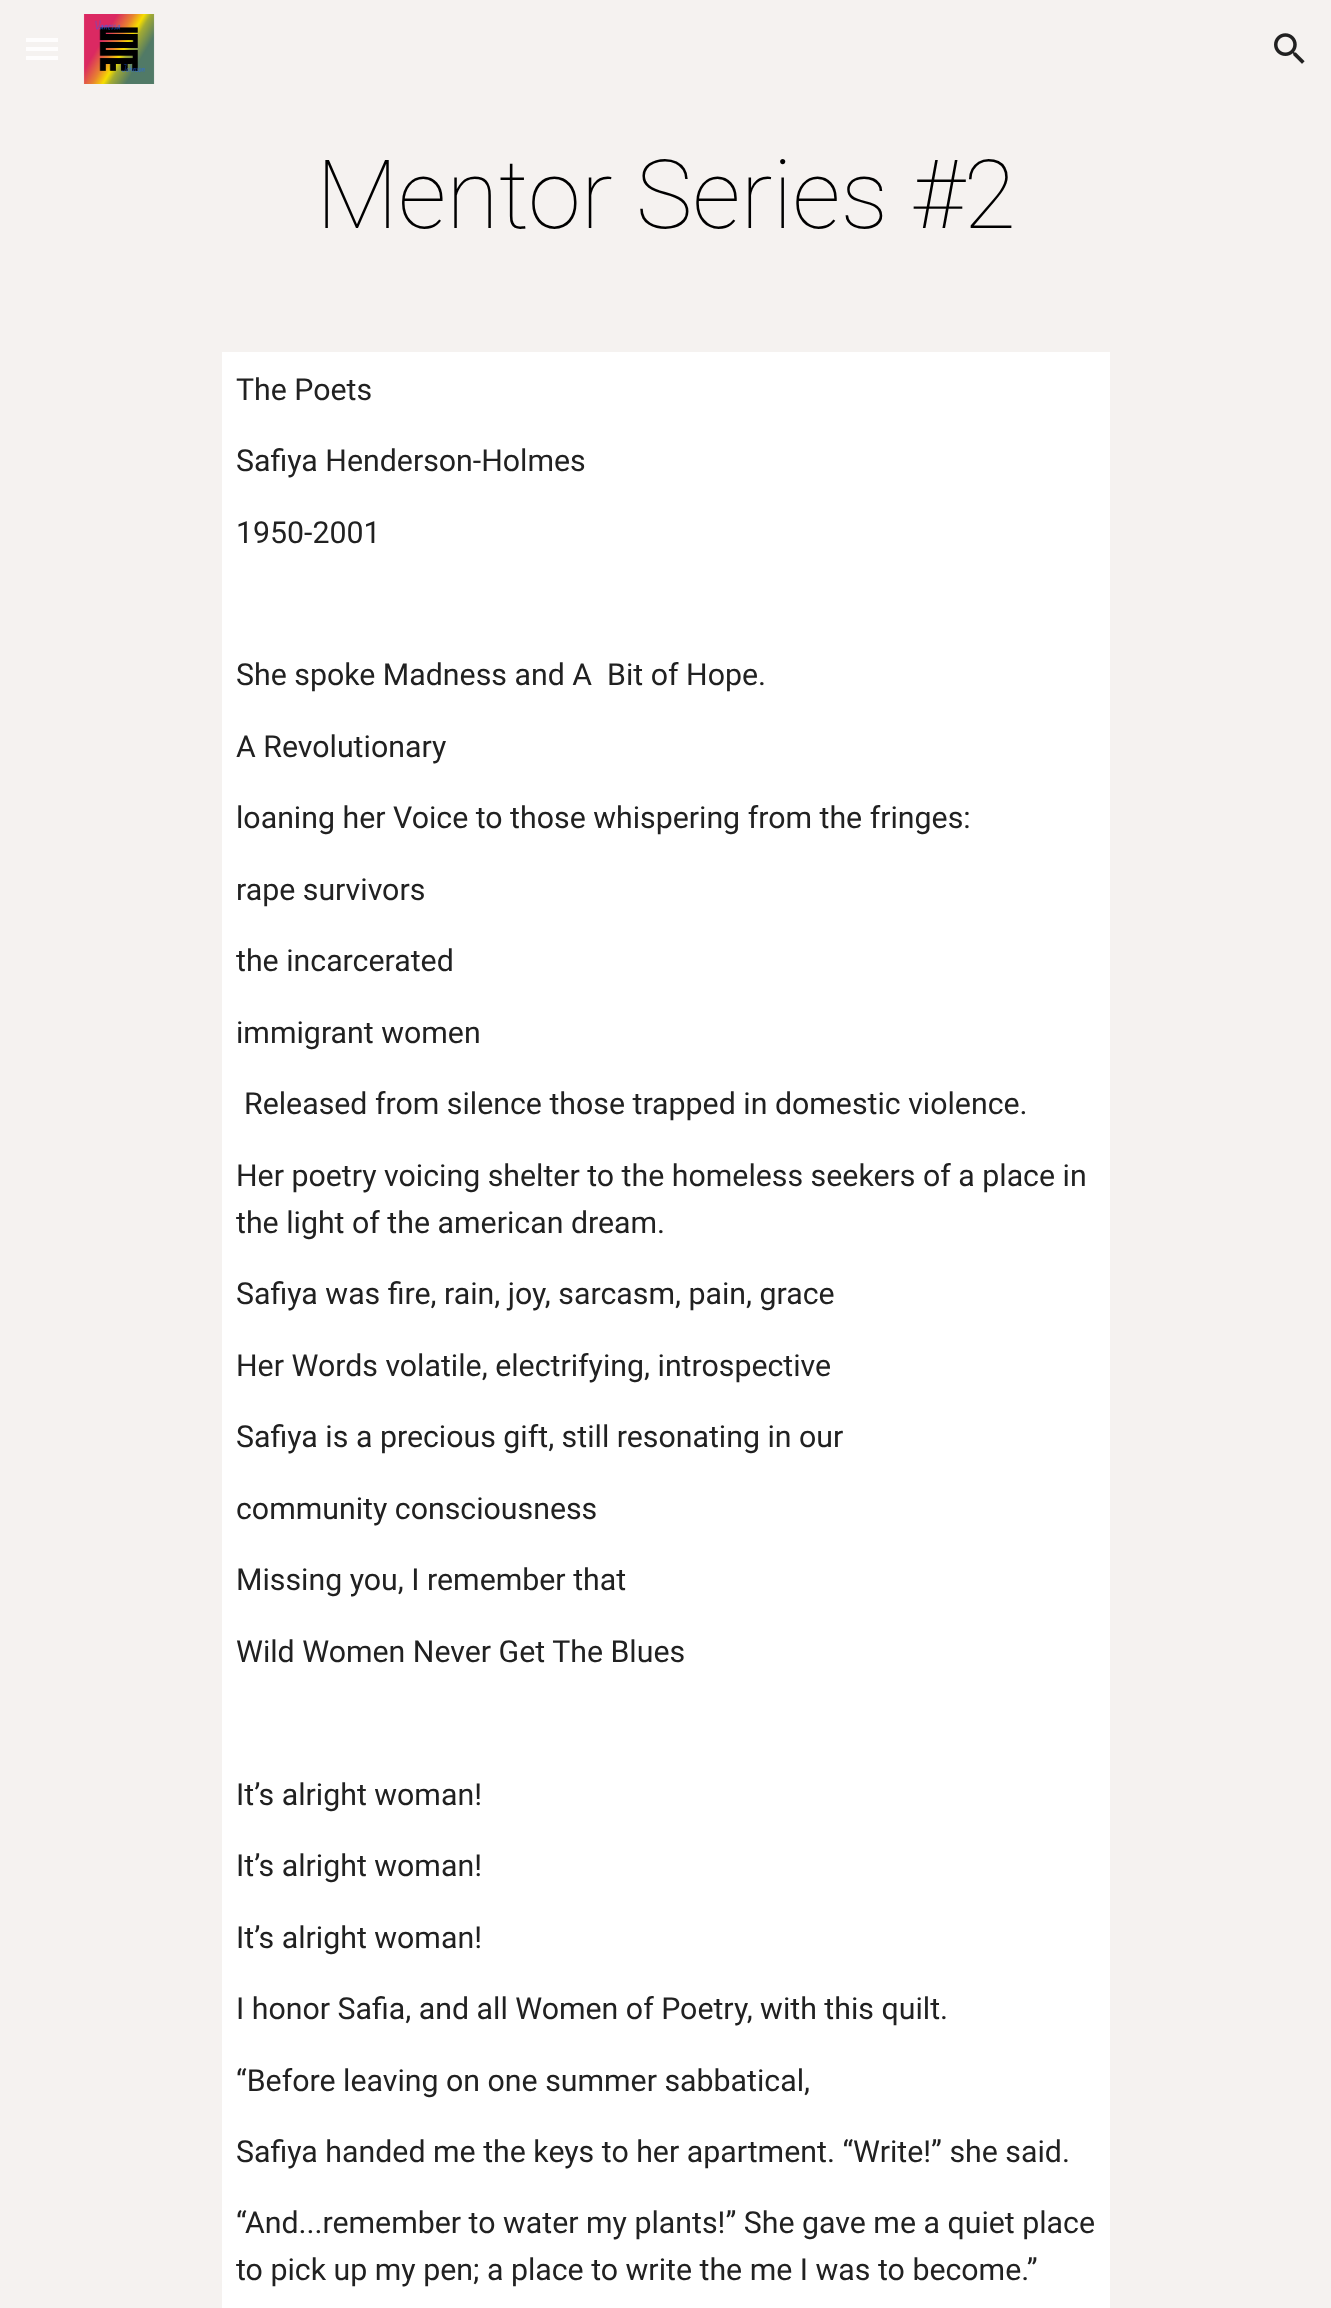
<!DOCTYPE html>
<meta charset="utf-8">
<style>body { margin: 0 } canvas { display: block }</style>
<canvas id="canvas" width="1331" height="2308"></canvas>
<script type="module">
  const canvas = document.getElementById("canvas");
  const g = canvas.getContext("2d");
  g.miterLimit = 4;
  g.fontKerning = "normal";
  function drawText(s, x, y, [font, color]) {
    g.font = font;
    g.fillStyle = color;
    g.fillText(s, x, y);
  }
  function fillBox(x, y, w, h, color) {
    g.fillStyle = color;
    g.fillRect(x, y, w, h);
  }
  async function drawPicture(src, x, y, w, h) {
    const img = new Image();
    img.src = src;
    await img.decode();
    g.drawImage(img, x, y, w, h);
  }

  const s1 = ["100 95.75px Roboto", "#000000"];
  const s2 = ["30.3px Roboto", "#212121"];

  fillBox(0, 0, 1331, 2308, "#F5F2F0");
  fillBox(26, 38, 32, 4, "#FEFDFD");
  fillBox(26, 47, 32, 4, "#FEFDFD");
  fillBox(26, 56, 32, 4, "#FEFDFD");
  await drawPicture("pic1.png", 83, 14, 72, 70);
  await drawPicture("pic2.png", 1274, 33, 31, 31);
  drawText("Mentor Series #2", 316, 228, s1);
  fillBox(222, 352, 888, 1956, "#FFFFFF");
  drawText("The Poets", 236, 400, s2);
  drawText("Safiya Henderson-Holmes", 236, 471, s2);
  drawText("1950-2001", 236, 543, s2);
  drawText("She spoke Madness and A  Bit of Hope.", 236, 685, s2);
  drawText("A Revolutionary", 236, 757, s2);
  drawText("loaning her Voice to those whispering from the fringes:", 236, 828, s2);
  drawText("rape survivors", 236, 900, s2);
  drawText("the incarcerated", 236, 971, s2);
  drawText("immigrant women", 236, 1043, s2);
  drawText("Released from silence those trapped in domestic violence.", 244, 1114, s2);
  drawText("Her poetry voicing shelter to the homeless seekers of a place in", 236, 1186, s2);
  drawText("the light of the american dream.", 236, 1233, s2);
  drawText("Safiya was fire, rain, joy, sarcasm, pain, grace", 236, 1304, s2);
  drawText("Her Words volatile, electrifying, introspective", 236, 1376, s2);
  drawText("Safiya is a precious gift, still resonating in our", 236, 1447, s2);
  drawText("community consciousness", 236, 1519, s2);
  drawText("Missing you, I remember that", 236, 1590, s2);
  drawText("Wild Women Never Get The Blues", 236, 1662, s2);
  drawText("It’s alright woman!", 236, 1805, s2);
  drawText("It’s alright woman!", 236, 1876, s2);
  drawText("It’s alright woman!", 236, 1948, s2);
  drawText("I honor Safia, and all Women of Poetry, with this quilt.", 236, 2019, s2);
  drawText("“Before leaving on one summer sabbatical,", 236, 2091, s2);
  drawText("Safiya handed me the keys to her apartment. “Write!” she said.", 236, 2162, s2);
  drawText("“And...remember to water my plants!” She gave me a quiet place", 236, 2233, s2);
  drawText("to pick up my pen; a place to write the me I was to become.”", 236, 2280, s2);
</script>
